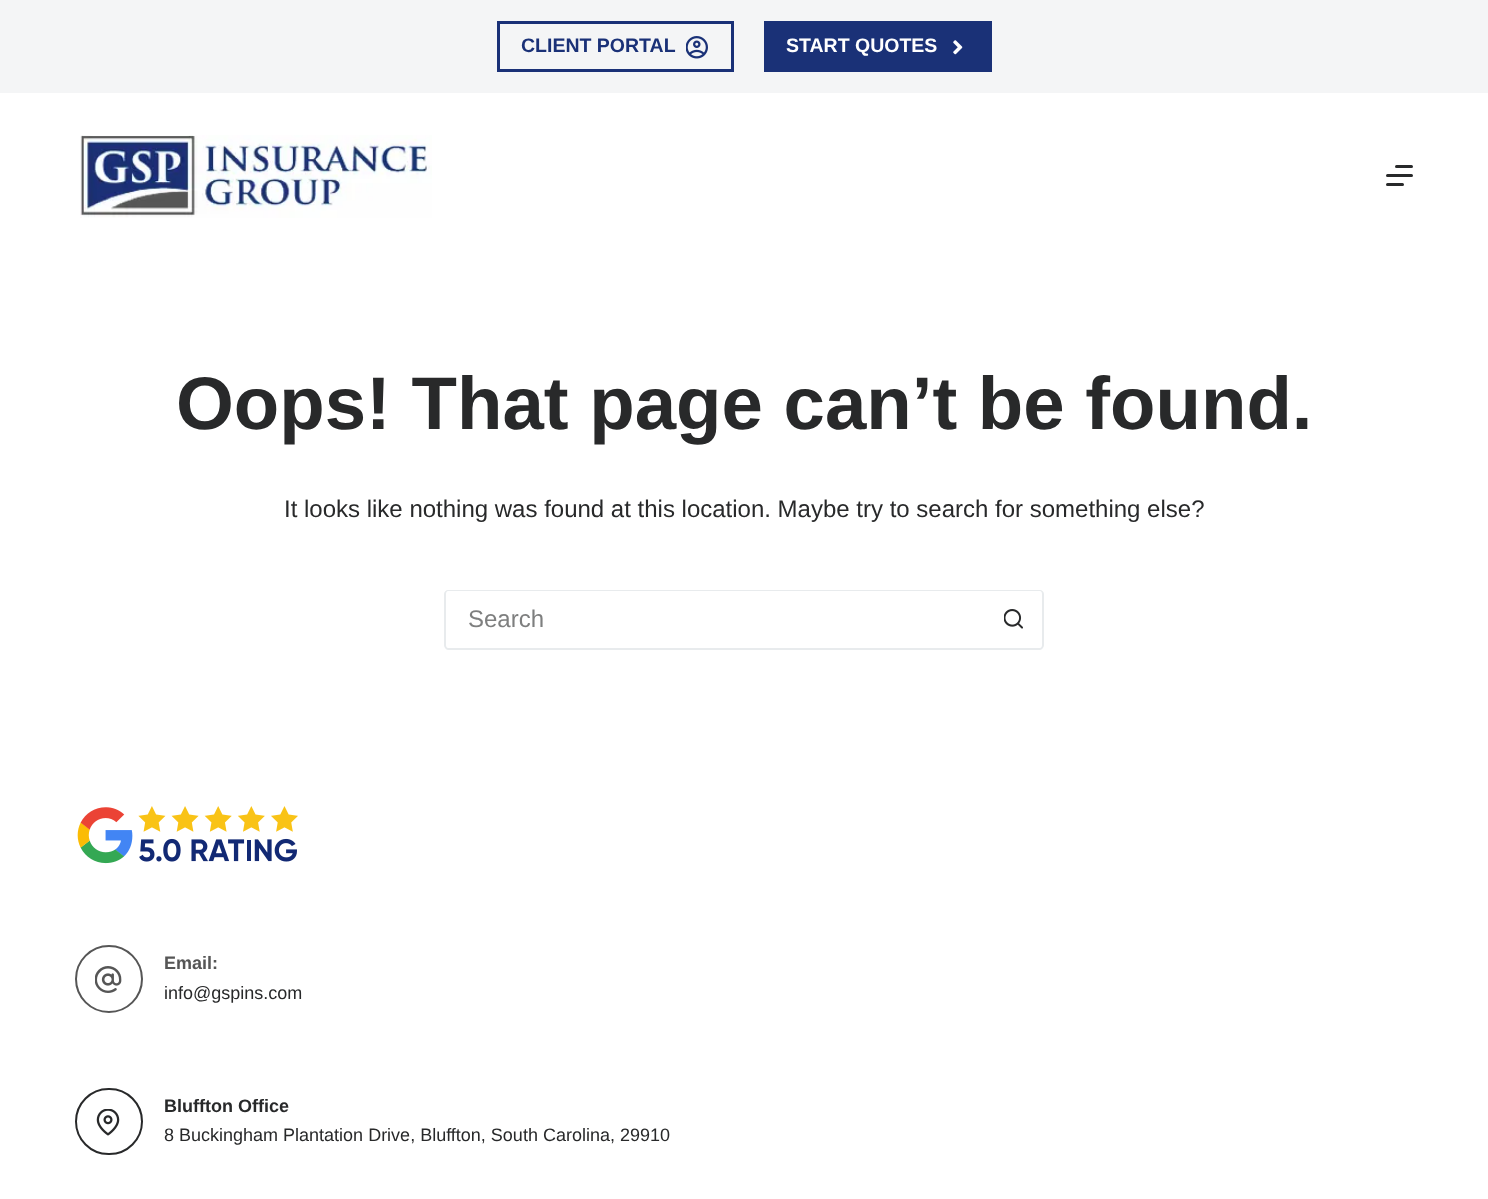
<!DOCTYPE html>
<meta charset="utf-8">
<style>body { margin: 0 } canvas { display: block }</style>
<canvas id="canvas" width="1488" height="1199"></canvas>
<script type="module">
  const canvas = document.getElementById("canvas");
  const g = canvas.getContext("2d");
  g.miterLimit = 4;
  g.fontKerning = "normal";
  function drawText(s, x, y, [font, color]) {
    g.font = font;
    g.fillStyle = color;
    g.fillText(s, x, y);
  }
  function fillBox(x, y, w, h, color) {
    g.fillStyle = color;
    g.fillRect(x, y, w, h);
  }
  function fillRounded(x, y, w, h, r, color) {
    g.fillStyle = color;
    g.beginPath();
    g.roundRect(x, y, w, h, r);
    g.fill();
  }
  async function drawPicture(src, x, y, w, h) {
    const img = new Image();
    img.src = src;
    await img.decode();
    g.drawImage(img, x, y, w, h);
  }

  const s1 = ["bold 19.5px Liberation Sans", "#1A3177"];
  const s2 = ["bold 19.5px Liberation Sans", "#FFFFFF"];
  const s3 = ["bold 74.4px Liberation Sans", "#28292A"];
  const s4 = ["24px Liberation Sans", "#28292A"];
  const s5 = ["24px Liberation Sans", "#7E7F7F"];
  const s6 = ["bold 18px Liberation Sans", "#565656"];
  const s7 = ["18px Liberation Sans", "#28292A"];
  const s8 = ["bold 18px Liberation Sans", "#28292A"];

  fillBox(0, 0, 1488, 1199, "#FFFFFF");
  fillBox(0, 0, 1488, 93, "#F4F5F6");
  g.strokeStyle = "#1A3177";
  g.lineWidth = 3;
  g.strokeRect(498.5, 22.5, 234, 48);
  drawText("CLIENT PORTAL", 521, 52, s1);
  await drawPicture("pic1.png", 686, 36, 22, 23);
  fillBox(764, 21, 228, 51, "#1A3177");
  drawText("START QUOTES", 786, 52, s2);
  await drawPicture("pic2.png", 953, 40, 10, 15);
  await drawPicture("pic3.png", 80, 135, 352, 83);
  fillRounded(1395, 165, 18, 3, 1.5, "#28292A");
  fillRounded(1386, 174, 27, 3, 1.5, "#28292A");
  fillRounded(1386, 183, 18, 3, 1.5, "#28292A");
  drawText("Oops! That page can’t be found.", 176, 429, s3);
  drawText("It looks like nothing was found at this location. Maybe try to search for something else?", 284, 517, s4);
  g.fillStyle = "#E8EBED";
  g.beginPath();
  g.moveTo(448, 590);
  g.lineTo(984, 590);
  g.lineTo(984, 650);
  g.lineTo(448, 650);
  g.bezierCurveTo(446, 650, 444, 647, 444, 645);
  g.lineTo(444, 594);
  g.bezierCurveTo(444, 592, 446, 590, 448, 590);
  g.closePath();
  g.moveTo(448, 591);
  g.lineTo(984, 591);
  g.lineTo(984, 648);
  g.lineTo(448, 648);
  g.bezierCurveTo(447, 648, 446, 647, 446, 645);
  g.lineTo(446, 594);
  g.bezierCurveTo(446, 592, 447, 591, 448, 591);
  g.closePath();
  g.fill("evenodd");
  drawText("Search", 468, 627, s5);
  g.fillStyle = "#E8EBED";
  g.beginPath();
  g.moveTo(984, 590);
  g.lineTo(1040, 590);
  g.bezierCurveTo(1042, 590, 1044, 592, 1044, 594);
  g.lineTo(1044, 645);
  g.bezierCurveTo(1044, 647, 1042, 650, 1040, 650);
  g.lineTo(984, 650);
  g.closePath();
  g.moveTo(984, 591);
  g.lineTo(1040, 591);
  g.bezierCurveTo(1041, 591, 1042, 592, 1042, 594);
  g.lineTo(1042, 645);
  g.bezierCurveTo(1042, 647, 1041, 648, 1040, 648);
  g.lineTo(984, 648);
  g.closePath();
  g.fill("evenodd");
  await drawPicture("pic4.png", 1004, 609, 19, 20);
  await drawPicture("pic5.png", 77, 806, 221, 58);
  g.beginPath();
  g.arc(109, 979, 33, 0, Math.PI * 2);
  g.strokeStyle = "#565656";
  g.lineWidth = 2;
  g.stroke();
  await drawPicture("pic6.png", 95, 966, 27, 27);
  drawText("Email:", 164, 969, s6);
  drawText("info@gspins.com", 164, 999, s7);
  g.beginPath();
  g.roundRect(76, 1089, 66, 65, 32.5);
  g.strokeStyle = "#28292A";
  g.stroke();
  await drawPicture("pic7.png", 96, 1109, 24, 27);
  drawText("Bluffton Office", 164, 1112, s8);
  drawText("8 Buckingham Plantation Drive, Bluffton, South Carolina, 29910", 164, 1141, s7);
</script>
